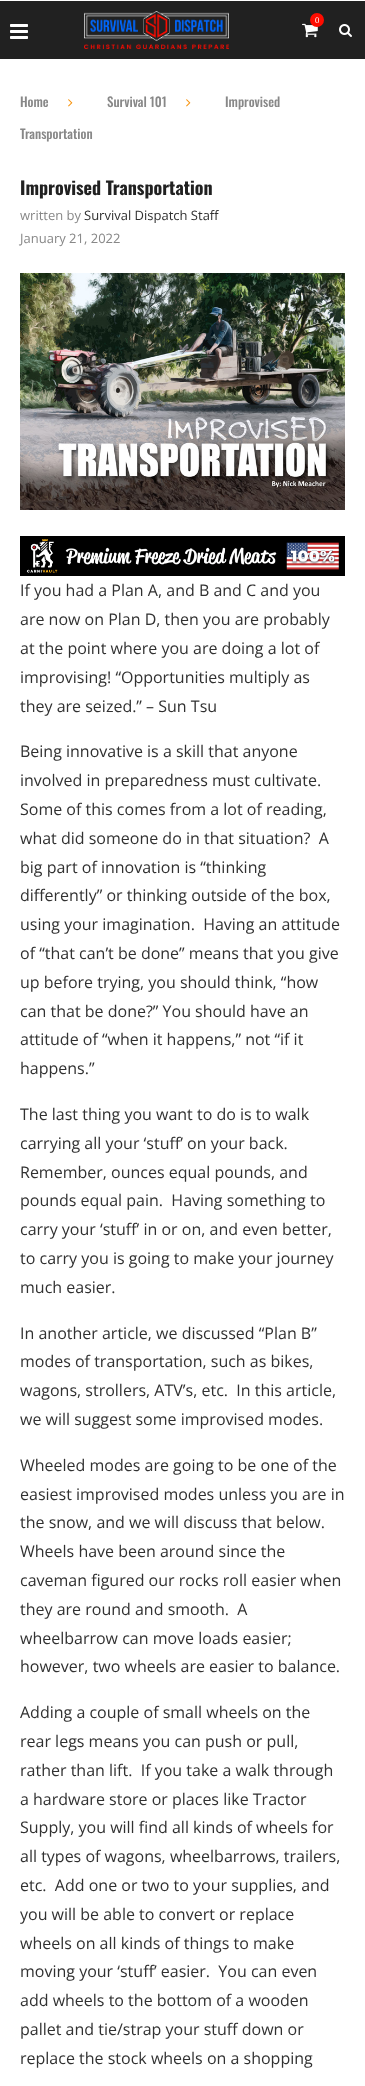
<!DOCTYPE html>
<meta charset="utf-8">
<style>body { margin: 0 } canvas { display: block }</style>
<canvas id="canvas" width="365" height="2086"></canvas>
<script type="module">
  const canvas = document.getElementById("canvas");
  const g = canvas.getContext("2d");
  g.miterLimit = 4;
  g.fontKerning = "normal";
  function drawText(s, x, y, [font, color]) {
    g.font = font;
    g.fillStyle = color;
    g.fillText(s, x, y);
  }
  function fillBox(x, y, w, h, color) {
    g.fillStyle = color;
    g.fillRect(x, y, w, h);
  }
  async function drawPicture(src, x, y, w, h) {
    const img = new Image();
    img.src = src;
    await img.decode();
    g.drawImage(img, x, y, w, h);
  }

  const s1 = ["8px PT Serif", "#FFFFFF"];
  const s2 = ["500 13px Oswald", "#888888"];
  const s3 = ["bold 18px Oswald", "#212121"];
  const s4 = ["13px Open Sans", "#888888"];
  const s5 = ["13px Open Sans", "#313131"];
  const s6 = ["16px Open Sans", "#313131"];

  fillBox(0, 0, 365, 2086, "#FFFFFF");
  fillBox(0, 1, 365, 58, "#212121");
  await drawPicture("pic1.png", 84, 11, 145, 38);
  await drawPicture("pic2.png", 302, 23, 16, 15);
  g.fillStyle = "#FF0C00";
  g.beginPath();
  g.arc(317, 20, 7, 0, Math.PI * 2);
  g.fill();
  drawText("0", 315, 23, s1);
  await drawPicture("pic3.png", 10, 24, 18, 15);
  await drawPicture("pic4.png", 339, 24, 13, 13);
  drawText("Home", 20, 107, s2);
  await drawPicture("pic5.png", 68, 99, 5, 8);
  drawText("Survival 101", 107, 107, s2);
  await drawPicture("pic5.png", 186, 99, 5, 8);
  drawText("Improvised", 225, 107, s2);
  drawText("Transportation", 20, 139, s2);
  drawText("Improvised Transportation", 20, 195, s3);
  drawText("written by", 20, 220, s4);
  drawText("Survival Dispatch Staff", 84, 220, s5);
  drawText("January 21, 2022", 20, 243, s4);
  await drawPicture("pic6.png", 20, 273, 325, 237);
  await drawPicture("pic7.png", 20, 536, 325, 40);
  drawText("If you had a Plan A, and B and C and you", 20, 596, s6);
  drawText("are now on Plan D, then you are probably", 20, 625, s6);
  drawText("at the point where you are doing a lot of", 20, 654, s6);
  drawText("improvising! “Opportunities multiply as", 20, 683, s6);
  drawText("they are seized.” – Sun Tsu", 20, 712, s6);
  drawText("Being innovative is a skill that anyone", 20, 757, s6);
  drawText("involved in preparedness must cultivate.", 20, 786, s6);
  drawText("Some of this comes from a lot of reading,", 20, 815, s6);
  drawText("what did someone do in that situation?  A", 20, 844, s6);
  drawText("big part of innovation is “thinking", 20, 873, s6);
  drawText("differently” or thinking outside of the box,", 20, 901, s6);
  drawText("using your imagination.  Having an attitude", 20, 930, s6);
  drawText("of “that can’t be done” means that you give", 20, 959, s6);
  drawText("up before trying, you should think, “how", 20, 988, s6);
  drawText("can that be done?” You should have an", 20, 1017, s6);
  drawText("attitude of “when it happens,” not “if it", 20, 1045, s6);
  drawText("happens.”", 20, 1074, s6);
  drawText("The last thing you want to do is to walk", 20, 1120, s6);
  drawText("carrying all your ‘stuff’ on your back.", 20, 1149, s6);
  drawText("Remember, ounces equal pounds, and", 20, 1178, s6);
  drawText("pounds equal pain.  Having something to", 20, 1206, s6);
  drawText("carry your ‘stuff’ in or on, and even better,", 20, 1235, s6);
  drawText("to carry you is going to make your journey", 20, 1264, s6);
  drawText("much easier.", 20, 1293, s6);
  drawText("In another article, we discussed “Plan B”", 20, 1339, s6);
  drawText("modes of transportation, such as bikes,", 20, 1367, s6);
  drawText("wagons, strollers, ATV’s, etc.  In this article,", 20, 1396, s6);
  drawText("we will suggest some improvised modes.", 20, 1425, s6);
  drawText("Wheeled modes are going to be one of the", 20, 1471, s6);
  drawText("easiest improvised modes unless you are in", 20, 1500, s6);
  drawText("the snow, and we will discuss that below.", 20, 1528, s6);
  drawText("Wheels have been around since the", 20, 1557, s6);
  drawText("caveman figured our rocks roll easier when", 20, 1586, s6);
  drawText("they are round and smooth.  A", 20, 1615, s6);
  drawText("wheelbarrow can move loads easier;", 20, 1644, s6);
  drawText("however, two wheels are easier to balance.", 20, 1672, s6);
  drawText("Adding a couple of small wheels on the", 20, 1718, s6);
  drawText("rear legs means you can push or pull,", 20, 1747, s6);
  drawText("rather than lift.  If you take a walk through", 20, 1776, s6);
  drawText("a hardware store or places like Tractor", 20, 1805, s6);
  drawText("Supply, you will find all kinds of wheels for", 20, 1833, s6);
  drawText("all types of wagons, wheelbarrows, trailers,", 20, 1862, s6);
  drawText("etc.  Add one or two to your supplies, and", 20, 1891, s6);
  drawText("you will be able to convert or replace", 20, 1920, s6);
  drawText("wheels on all kinds of things to make", 20, 1949, s6);
  drawText("moving your ‘stuff’ easier.  You can even", 20, 1977, s6);
  drawText("add wheels to the bottom of a wooden", 20, 2006, s6);
  drawText("pallet and tie/strap your stuff down or", 20, 2035, s6);
  drawText("replace the stock wheels on a shopping", 20, 2064, s6);
</script>
